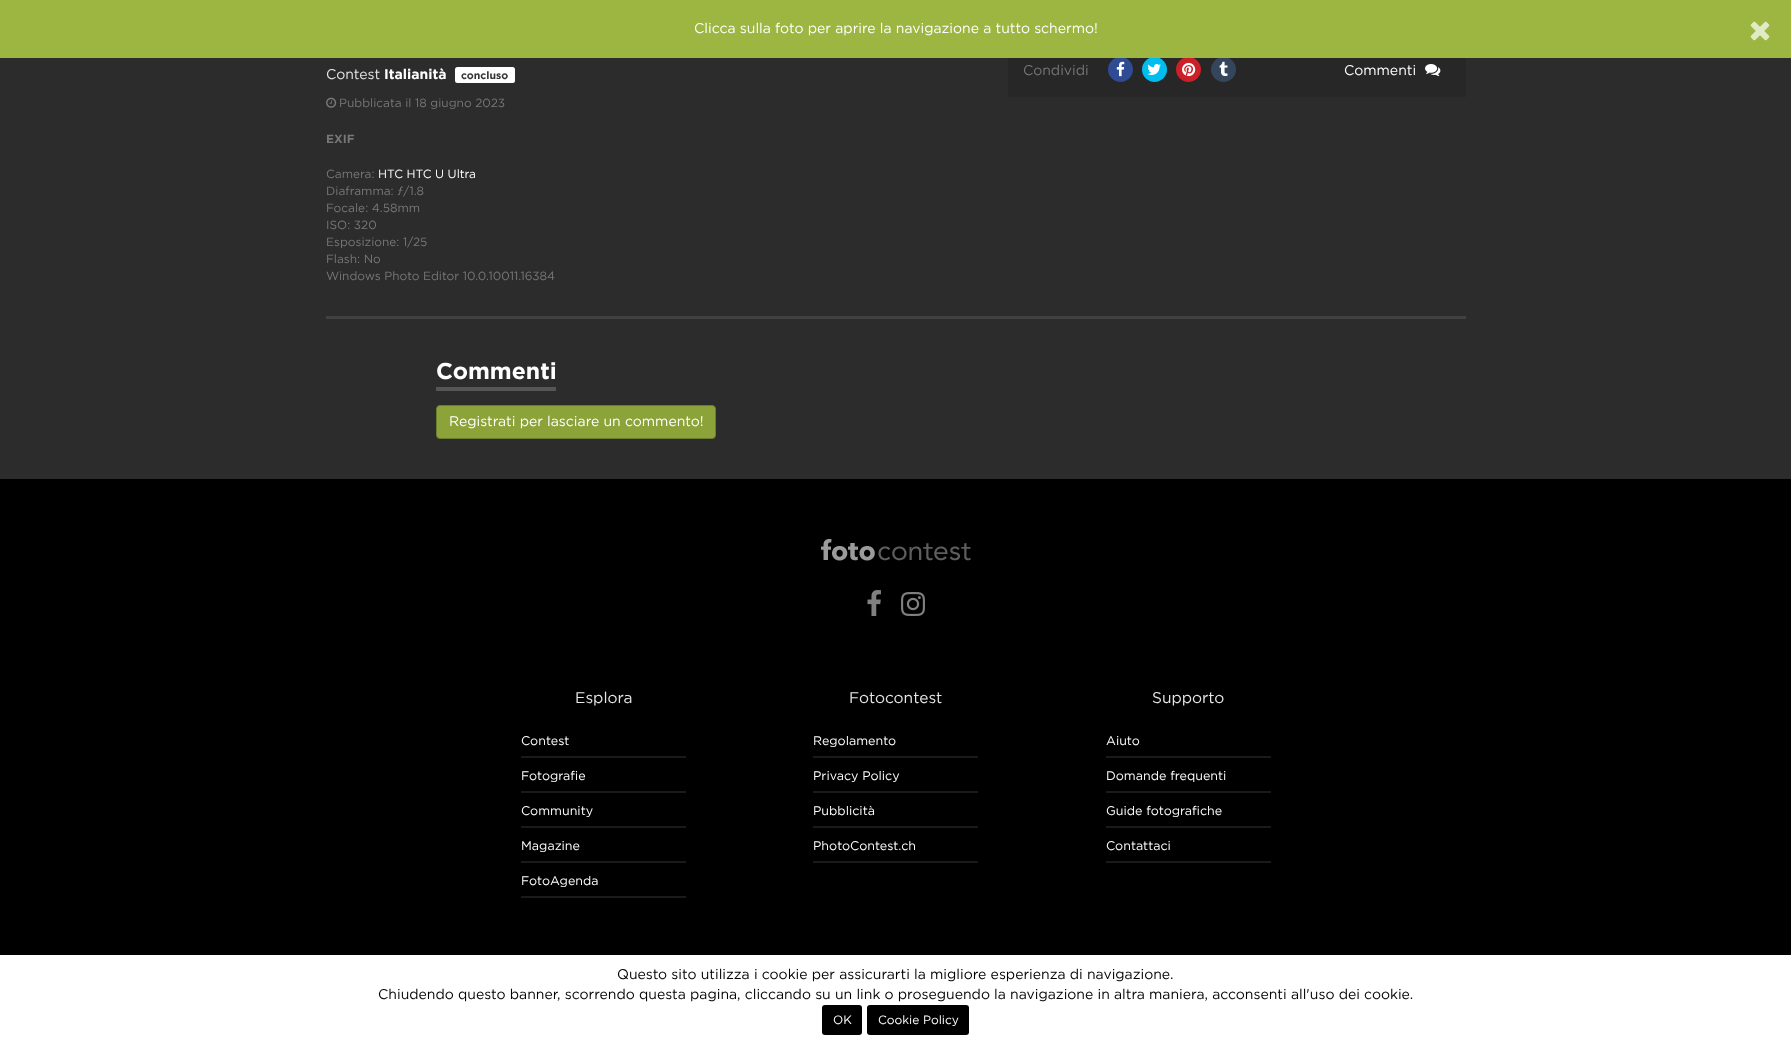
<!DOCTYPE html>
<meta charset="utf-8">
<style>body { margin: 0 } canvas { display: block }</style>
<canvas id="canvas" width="1791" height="1045"></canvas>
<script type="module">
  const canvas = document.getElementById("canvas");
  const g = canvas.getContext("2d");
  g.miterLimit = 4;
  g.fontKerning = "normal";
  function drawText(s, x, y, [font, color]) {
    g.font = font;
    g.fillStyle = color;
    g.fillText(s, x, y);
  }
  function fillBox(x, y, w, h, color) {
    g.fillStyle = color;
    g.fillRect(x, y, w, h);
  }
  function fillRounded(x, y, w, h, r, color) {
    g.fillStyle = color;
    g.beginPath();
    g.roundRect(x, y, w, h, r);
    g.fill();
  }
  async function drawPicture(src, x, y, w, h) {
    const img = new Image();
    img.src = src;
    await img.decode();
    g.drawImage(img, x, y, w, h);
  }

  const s1 = ["14px Gotham", "#FFFFFF"];
  const s2 = ["14px Gotham", "#E6E6E6"];
  const s3 = ["bold 14px Gotham", "#FFFFFF"];
  const s4 = ["bold 10.5px Gotham", "#333333"];
  const s5 = ["11.9px Gotham", "#777777"];
  const s6 = ["bold 11.9px Gotham", "#777777"];
  const s7 = ["11.9px Gotham", "#FFFFFF"];
  const s8 = ["14px Gotham", "#777777"];
  const s9 = ["bold 23px Gotham", "#FFFFFF"];
  const s10 = ["15.5px Gotham", "#E6E6E6"];
  const s11 = ["12.5px Gotham", "#FFFFFF"];
  const s12 = ["14px Gotham", "#000000"];
  const s13 = ["12px Gotham", "#FFFFFF"];

  fillBox(0, 0, 1791, 1045, "#2C2C2C");
  fillBox(1008, 58, 458, 39, "#272727");
  g.fillStyle = "#2F4B93";
  g.beginPath();
  g.arc(1120.5, 69.5, 12.5, 0, Math.PI * 2);
  g.fill();
  g.fillStyle = "#00BDEF";
  g.beginPath();
  g.arc(1154.5, 69.5, 12.5, 0, Math.PI * 2);
  g.fill();
  g.fillStyle = "#CB2027";
  g.beginPath();
  g.arc(1188.5, 69.5, 12.5, 0, Math.PI * 2);
  g.fill();
  g.fillStyle = "#35465C";
  g.beginPath();
  g.arc(1223.5, 69.5, 12.5, 0, Math.PI * 2);
  g.fill();
  fillBox(0, 0, 1791, 58, "#9CB641");
  drawText("Clicca sulla foto per aprire la navigazione a tutto schermo!", 694, 33, s1);
  await drawPicture("pic1.png", 1750, 21, 20, 20);
  drawText("Contest", 326, 79, s2);
  drawText("Italianità", 384, 79, s3);
  fillRounded(455, 67, 60, 16, 2.5, "#FFFFFF");
  drawText("concluso", 461, 79, s4);
  await drawPicture("pic2.png", 326, 97, 11, 11);
  drawText("Pubblicata il 18 giugno 2023", 339, 107, s5);
  drawText("EXIF", 326, 143, s6);
  drawText("Camera:", 326, 178, s5);
  drawText("HTC HTC U Ultra", 378, 178, s7);
  drawText("Diaframma: ƒ/1.8", 326, 195, s5);
  drawText("Focale: 4.58mm", 326, 212, s5);
  drawText("ISO: 320", 326, 229, s5);
  drawText("Esposizione: 1/25", 326, 246, s5);
  drawText("Flash: No", 326, 263, s5);
  drawText("Windows Photo Editor 10.0.10011.16384", 326, 280, s5);
  drawText("Condividi", 1023, 75, s8);
  await drawPicture("pic3.png", 1116, 61, 9, 16);
  await drawPicture("pic4.png", 1147, 64, 14, 11);
  await drawPicture("pic5.png", 1182, 62, 14, 15);
  await drawPicture("pic6.png", 1219, 61, 9, 16);
  drawText("Commenti", 1344, 75, s1);
  await drawPicture("pic7.png", 1425, 64, 16, 13);
  fillBox(326, 316, 1140, 3, "#414141");
  drawText("Commenti", 436, 379, s9);
  fillBox(436, 387, 120, 4, "#565656");
  g.fillStyle = "#8CA33A";
  g.beginPath();
  g.roundRect(436.5, 405.5, 279, 33, 3.5);
  g.fill();
  g.strokeStyle = "#6C7E2D";
  g.stroke();
  drawText("Registrati per lasciare un commento!", 449, 426, s1);
  fillBox(0, 479, 1791, 476, "#000000");
  await drawPicture("pic8.png", 821, 539, 150, 22);
  await drawPicture("pic9.png", 867, 590, 14, 26);
  await drawPicture("pic10.png", 901, 592, 24, 24);
  drawText("Esplora", 575, 703, s10);
  fillBox(521, 756, 165, 2, "#1A1A1A");
  drawText("Contest", 521, 745, s11);
  fillBox(521, 791, 165, 2, "#1A1A1A");
  drawText("Fotografie", 521, 780, s11);
  fillBox(521, 826, 165, 2, "#1A1A1A");
  drawText("Community", 521, 815, s11);
  fillBox(521, 861, 165, 2, "#1A1A1A");
  drawText("Magazine", 521, 850, s11);
  fillBox(521, 896, 165, 2, "#1A1A1A");
  drawText("FotoAgenda", 521, 885, s11);
  drawText("Fotocontest", 849, 703, s10);
  fillBox(813, 756, 165, 2, "#1A1A1A");
  drawText("Regolamento", 813, 745, s11);
  fillBox(813, 791, 165, 2, "#1A1A1A");
  drawText("Privacy Policy", 813, 780, s11);
  fillBox(813, 826, 165, 2, "#1A1A1A");
  drawText("Pubblicità", 813, 815, s11);
  fillBox(813, 861, 165, 2, "#1A1A1A");
  drawText("PhotoContest.ch", 813, 850, s11);
  drawText("Supporto", 1152, 703, s10);
  fillBox(1106, 756, 165, 2, "#1A1A1A");
  drawText("Aiuto", 1106, 745, s11);
  fillBox(1106, 791, 165, 2, "#1A1A1A");
  drawText("Domande frequenti", 1106, 780, s11);
  fillBox(1106, 826, 165, 2, "#1A1A1A");
  drawText("Guide fotografiche", 1106, 815, s11);
  fillBox(1106, 861, 165, 2, "#1A1A1A");
  drawText("Contattaci", 1106, 850, s11);
  fillBox(0, 955, 1791, 90, "#FFFFFF");
  drawText("Questo sito utilizza i cookie per assicurarti la migliore esperienza di navigazione.", 617, 979, s12);
  drawText("Chiudendo questo banner, scorrendo questa pagina, cliccando su un link o proseguendo la navigazione in altra maniera, acconsenti all'uso dei cookie.", 378, 999, s12);
  fillRounded(822, 1005, 40, 30, 3, "#000000");
  drawText("OK", 833, 1024, s13);
  fillRounded(867, 1005, 102, 30, 3, "#000000");
  drawText("Cookie Policy", 878, 1024, s13);
</script>
